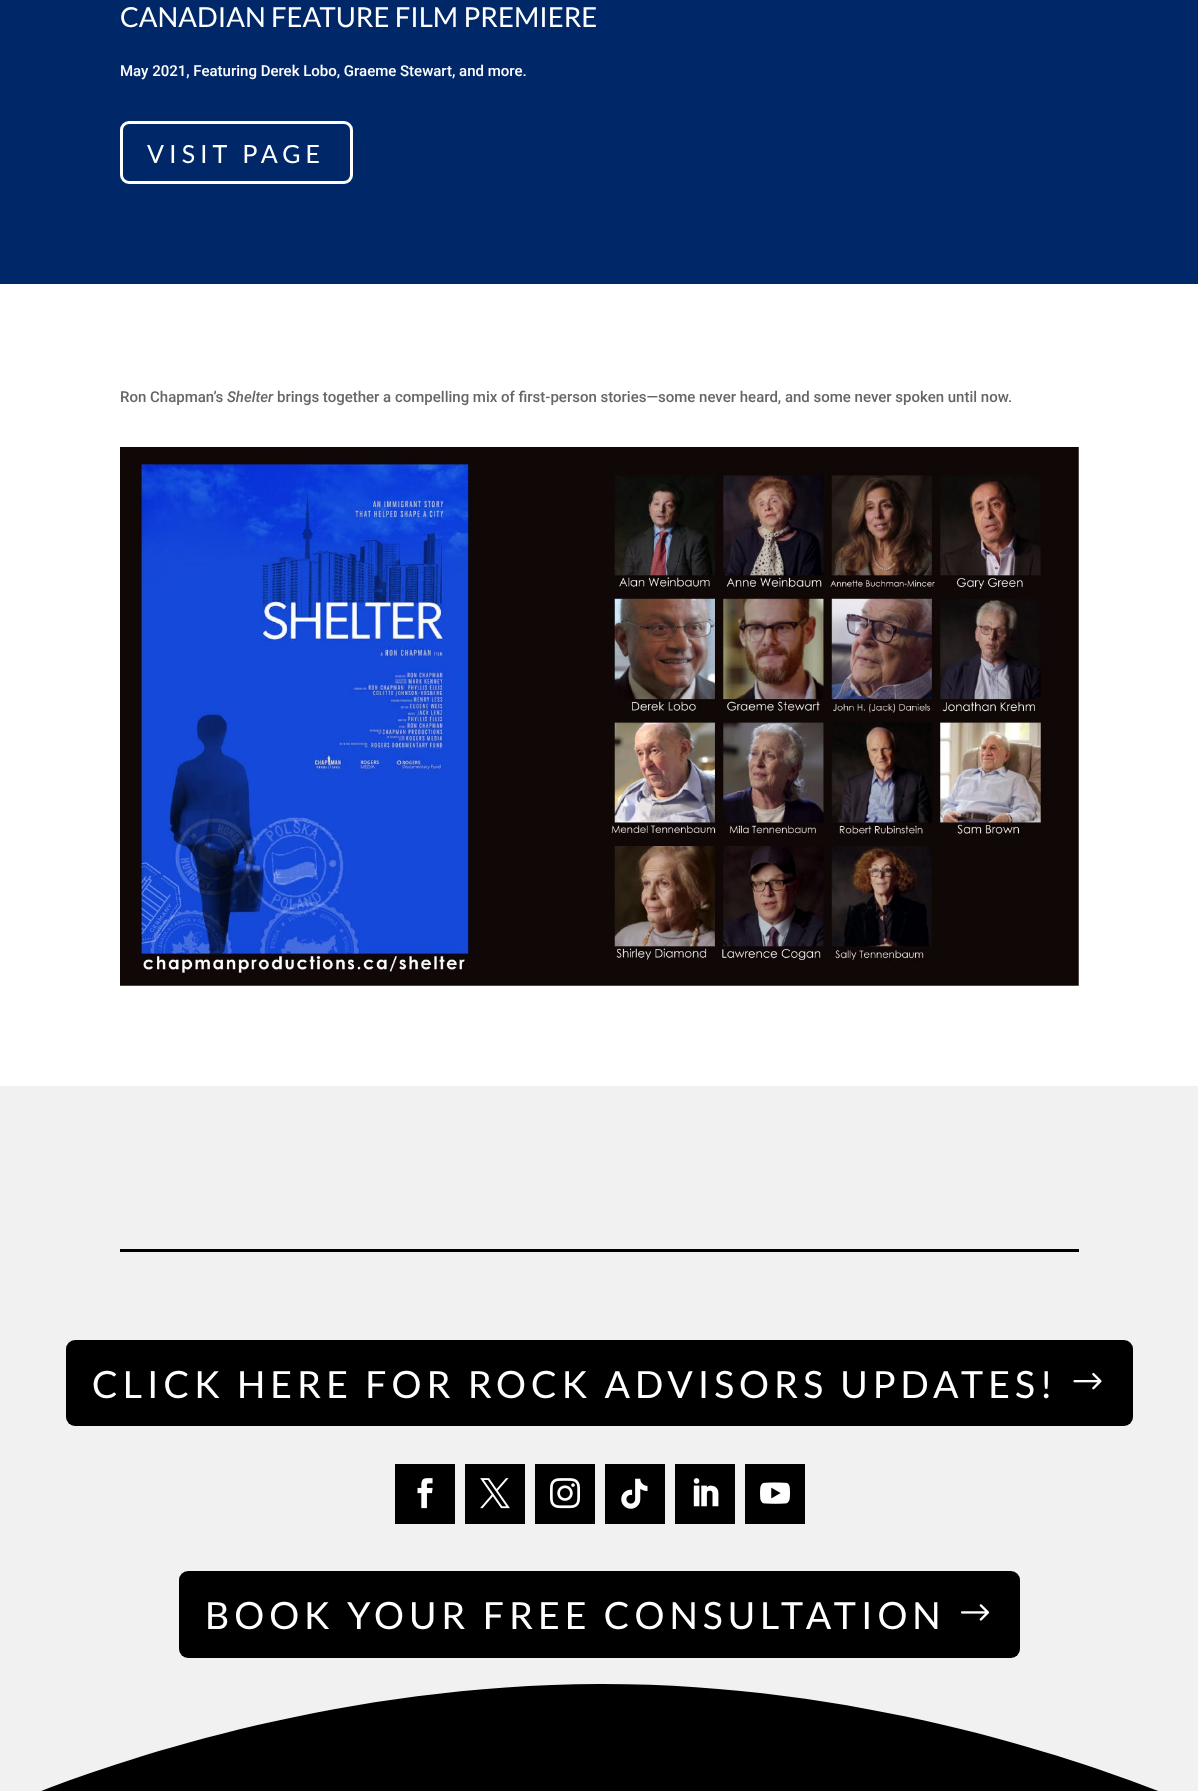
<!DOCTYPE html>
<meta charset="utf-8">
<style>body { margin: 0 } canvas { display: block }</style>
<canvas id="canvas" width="1198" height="1791"></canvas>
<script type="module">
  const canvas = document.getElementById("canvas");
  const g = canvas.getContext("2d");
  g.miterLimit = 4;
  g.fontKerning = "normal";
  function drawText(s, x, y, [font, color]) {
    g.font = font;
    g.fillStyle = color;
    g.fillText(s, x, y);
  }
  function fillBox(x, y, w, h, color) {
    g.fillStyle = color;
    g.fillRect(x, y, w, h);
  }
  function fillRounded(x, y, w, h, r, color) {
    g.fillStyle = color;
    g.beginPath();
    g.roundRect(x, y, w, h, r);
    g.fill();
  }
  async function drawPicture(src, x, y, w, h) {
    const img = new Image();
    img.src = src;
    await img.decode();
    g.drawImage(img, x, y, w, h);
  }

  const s1 = ["27.5px Lato", "#FFFFFF"];
  const s2 = ["500 15px Roboto", "#FFFFFF"];
  const s3 = ["25px Lato", "#FFFFFF"];
  const s4 = ["500 15px Roboto", "#666666"];
  const s5 = ["italic 500 15px Roboto", "#666666"];
  const s6 = ["37.5px Lato", "#FFFFFF"];

  fillBox(0, 0, 1198, 1791, "#002868");
  drawText("CANADIAN FEATURE FILM PREMIERE", 120, 27, s1);
  drawText("May 2021, Featuring Derek Lobo, Graeme Stewart, and more.", 120, 76, s2);
  g.beginPath();
  g.roundRect(121.5, 122.5, 230, 60, 7.5);
  g.strokeStyle = "#FFFFFF";
  g.lineWidth = 3;
  g.stroke();
  g.letterSpacing = "5px";
  drawText("VISIT PAGE", 147, 163, s3);
  fillBox(0, 284, 1198, 802, "#FFFFFF");
  g.letterSpacing = "0px";
  drawText("Ron Chapman’s", 120, 402, s4);
  drawText("Shelter", 227, 402, s5);
  drawText("brings together a compelling mix of first-person stories—some never heard, and some never spoken until now.", 277, 402, s4);
  await drawPicture("pic1.png", 120, 447, 959, 539);
  fillBox(0, 1086, 1198, 597, "#F1F1F1");
  fillBox(120, 1249, 959, 3, "#000000");
  fillRounded(66, 1340, 1067, 86, 9, "#000000");
  g.letterSpacing = "5px";
  drawText("CLICK HERE FOR ROCK ADVISORS UPDATES!", 92, 1398, s6);
  await drawPicture("pic2.png", 1073, 1373, 29, 17);
  fillBox(395, 1464, 60, 60, "#000000");
  await drawPicture("pic3.png", 417, 1478, 16, 31);
  fillBox(465, 1464, 60, 60, "#000000");
  await drawPicture("pic4.png", 480, 1478, 30, 31);
  fillBox(535, 1464, 60, 60, "#000000");
  await drawPicture("pic5.png", 550, 1478, 30, 31);
  fillBox(605, 1464, 60, 60, "#000000");
  await drawPicture("pic6.png", 621, 1478, 27, 31);
  fillBox(675, 1464, 60, 60, "#000000");
  await drawPicture("pic7.png", 693, 1478, 26, 29);
  fillBox(745, 1464, 60, 60, "#000000");
  await drawPicture("pic8.png", 760, 1482, 30, 22);
  fillRounded(179, 1571, 841, 87, 9, "#000000");
  drawText("BOOK YOUR FREE CONSULTATION", 205, 1629, s6);
  await drawPicture("pic9.png", 961, 1604, 29, 17);
  fillBox(41, 1684, 1117, 107, "#000000");
  g.fillStyle = "#F1F1F1";
  g.beginPath();
  g.moveTo(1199, 1683);
  g.lineTo(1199, 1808);
  g.bezierCurveTo(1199, 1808, 930, 1683, 599, 1684);
  g.bezierCurveTo(268, 1685, 0, 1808, 0, 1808);
  g.lineTo(0, 1683);
  g.closePath();
  g.fill();
</script>
